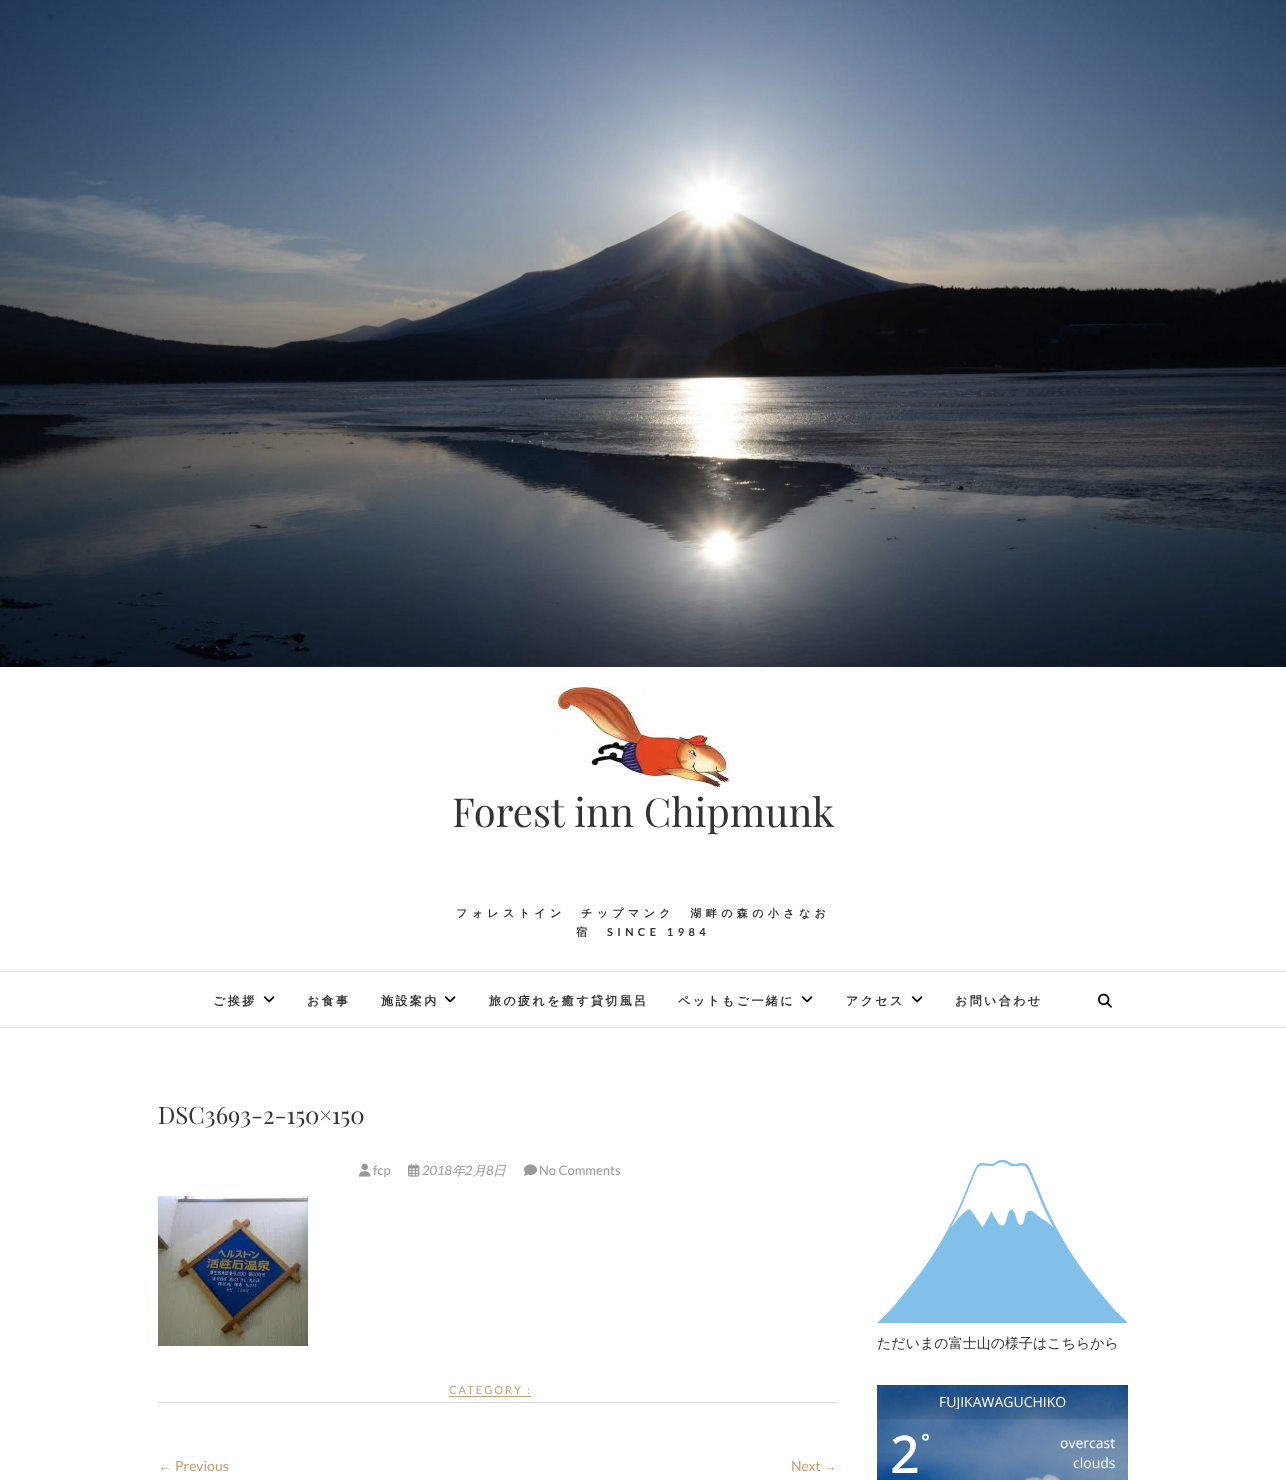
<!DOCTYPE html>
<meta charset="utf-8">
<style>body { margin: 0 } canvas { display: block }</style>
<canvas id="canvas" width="1286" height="1480"></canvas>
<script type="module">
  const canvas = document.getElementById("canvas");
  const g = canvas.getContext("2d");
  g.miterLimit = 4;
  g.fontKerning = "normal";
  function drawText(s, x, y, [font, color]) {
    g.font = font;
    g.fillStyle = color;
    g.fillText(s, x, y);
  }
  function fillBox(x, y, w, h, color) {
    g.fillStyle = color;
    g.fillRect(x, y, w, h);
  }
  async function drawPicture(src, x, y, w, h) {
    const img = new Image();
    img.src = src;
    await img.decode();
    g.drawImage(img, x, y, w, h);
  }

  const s1 = ["40px Playfair Display", "#333333"];
  const s2 = ["bold 11px WenQuanYi Zen Hei", "#333333"];
  const s3 = ["bold 11px Lato", "#333333"];
  const s4 = ["bold 12px WenQuanYi Zen Hei", "#333333"];
  const s5 = ["24px Playfair Display", "#333333"];
  const s6 = ["13px Lato", "#999999"];
  const s7 = ["italic 13px Lato", "#999999"];
  const s8 = ["italic 500 13px WenQuanYi Zen Hei", "#999999"];
  const s9 = ["11px Lato", "#C69F70"];
  const s10 = ["14px Liberation Sans", "#C69F70"];
  const s11 = ["14px Lato", "#C69F70"];
  const s12 = ["500 14px WenQuanYi Zen Hei", "#333333"];
  const s13 = ["14px Open Sans", "#FFFFFF"];
  const s14 = ["bold 50px Open Sans", "#FFFFFF"];
  const s15 = ["bold 20px Open Sans", "#FFFFFF"];

  fillBox(0, 0, 1286, 1480, "#FFFFFF");
  await drawPicture("pic1.png", 0, 0, 1286, 667);
  fillBox(0, 971, 1286, 1, "#E6E6E6");
  await drawPicture("pic2.png", 553, 687, 176, 100);
  drawText("Forest inn Chipmunk", 452, 827, s1);
  g.letterSpacing = "4.4px";
  drawText("フォレストイン　チップマンク　湖畔の森の小さなお", 456, 917, s2);
  drawText("宿", 576, 936, s2);
  drawText("SINCE 1984", 607, 936, s3);
  fillBox(0, 1027, 1286, 1, "#E6E6E6");
  g.letterSpacing = "2.4px";
  drawText("ご挨拶", 213, 1005, s4);
  await drawPicture("pic3.png", 263, 996, 12, 7);
  drawText("お食事", 307, 1005, s4);
  drawText("施設案内", 381, 1005, s4);
  await drawPicture("pic3.png", 444, 996, 12, 7);
  drawText("旅の疲れを癒す貸切風呂", 489, 1005, s4);
  drawText("ペットもご一緒に", 678, 1005, s4);
  await drawPicture("pic3.png", 801, 996, 12, 7);
  drawText("アクセス", 846, 1005, s4);
  await drawPicture("pic3.png", 911, 996, 12, 7);
  drawText("お問い合わせ", 955, 1005, s4);
  await drawPicture("pic4.png", 1098, 993, 14, 15);
  g.letterSpacing = "0px";
  drawText("DSC3693-2-150×150", 158, 1124, s5);
  await drawPicture("pic5.png", 359, 1163, 12, 14);
  drawText("fcp", 373, 1175, s6);
  await drawPicture("pic6.png", 408, 1163, 12, 14);
  drawText("2018", 422, 1175, s7);
  drawText("年", 452, 1175, s8);
  drawText("2", 465, 1175, s7);
  drawText("月", 473, 1175, s8);
  drawText("8", 486, 1175, s7);
  drawText("日", 493, 1175, s8);
  await drawPicture("pic7.png", 524, 1164, 13, 12);
  drawText("No Comments", 539, 1175, s6);
  await drawPicture("pic8.png", 158, 1196, 150, 150);
  fillBox(158, 1402, 679, 1, "#D9D9D9");
  g.letterSpacing = "2px";
  drawText("CATEGORY :", 449, 1394, s9);
  fillBox(449, 1396, 82, 1, "#C69F70");
  g.letterSpacing = "0px";
  drawText("←", 158, 1471, s10);
  drawText("Previous", 175, 1471, s11);
  drawText("Next", 791, 1471, s11);
  drawText("→", 823, 1471, s10);
  await drawPicture("pic9.png", 877, 1160, 251, 163);
  drawText("ただいまの富士山の様子はこちらから", 877, 1348, s12);
  await drawPicture("pic10.png", 877, 1385, 251, 95);
  fillBox(877, 1385, 251, 34, "rgba(0, 0, 0, 0.1)");
  g.save();
  g.beginPath();
  g.rect(887, 1395, 231, 14);
  g.clip();
  drawText("FUJIKAWAGUCHIKO", 939, 1407, s13);
  g.restore();
  drawText("2", 890, 1473, s14);
  drawText("°", 921, 1449, s15);
  drawText("overcast", 1060, 1448, s13);
  drawText("clouds", 1073, 1468, s13);
</script>
